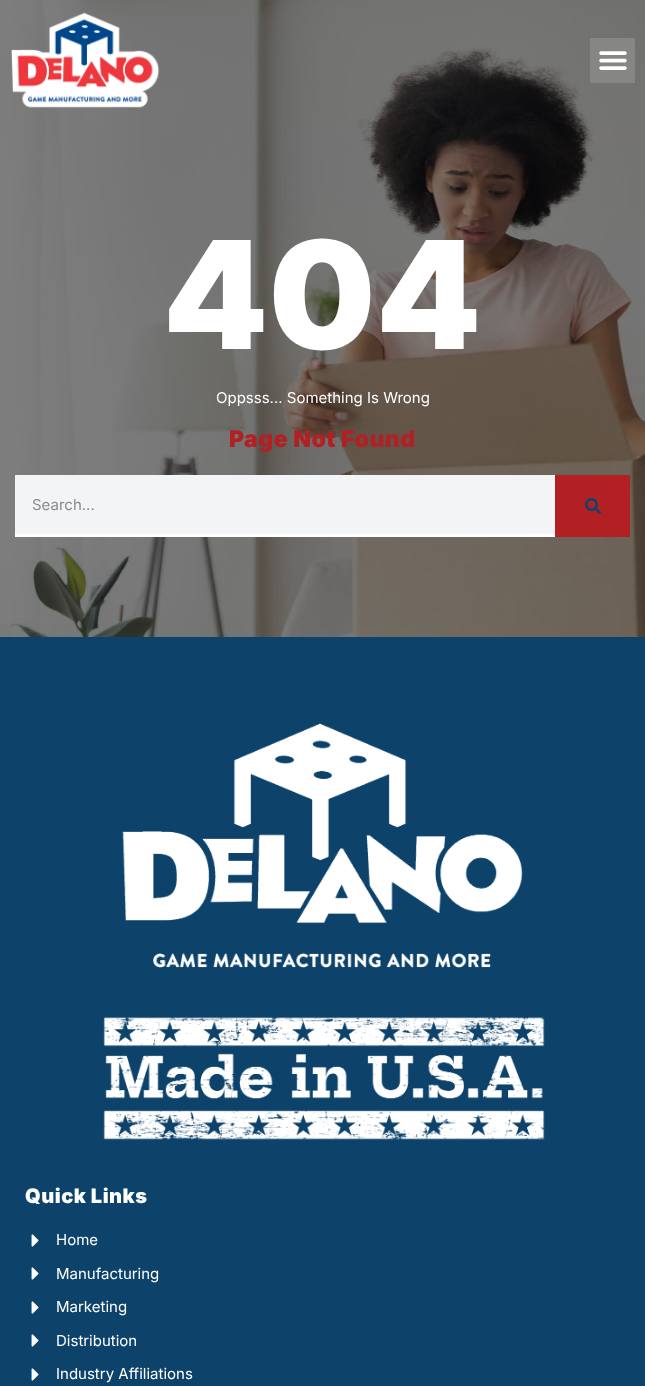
<!DOCTYPE html>
<meta charset="utf-8">
<style>body { margin: 0 } canvas { display: block }</style>
<canvas id="canvas" width="645" height="1386"></canvas>
<script type="module">
  const canvas = document.getElementById("canvas");
  const g = canvas.getContext("2d");
  g.miterLimit = 4;
  g.fontKerning = "normal";
  function drawText(s, x, y, [font, color]) {
    g.font = font;
    g.fillStyle = color;
    g.fillText(s, x, y);
  }
  function fillBox(x, y, w, h, color) {
    g.fillStyle = color;
    g.fillRect(x, y, w, h);
  }
  async function drawPicture(src, x, y, w, h) {
    const img = new Image();
    img.src = src;
    await img.decode();
    g.drawImage(img, x, y, w, h);
  }

  const s1 = ["900 150px Inter", "#FFFFFF"];
  const s2 = ["15px Inter", "#FFFFFF"];
  const s3 = ["900 23px Inter", "#B22024"];
  const s4 = ["15px Inter", "#878A8F"];
  const s5 = ["900 20px Inter", "#FFFFFF"];

  fillBox(0, 0, 645, 1386, "#FFFFFF");
  await drawPicture("pic3.png", 0, 0, 645, 637);
  await drawPicture("pic1.png", 11, 12, 149, 96);
  fillBox(590, 38, 45, 45, "#868784");
  await drawPicture("pic2.png", 599, 51, 28, 19);
  g.letterSpacing = "0.5px";
  drawText("404", 163, 349, s1);
  g.letterSpacing = "0px";
  drawText("Oppsss... Something Is Wrong", 216, 403, s2);
  g.letterSpacing = "0.5px";
  drawText("Page Not Found", 229, 447, s3);
  fillBox(15, 475, 540, 59, "#F3F4F5");
  fillBox(15, 534, 540, 3, "#FFFFFF");
  g.letterSpacing = "0px";
  drawText("Search...", 32, 510, s4);
  fillBox(555, 475, 75, 62, "#B22024");
  await drawPicture("pic4.png", 585, 498, 16, 16);
  fillBox(0, 637, 645, 749, "#0D436B");
  await drawPicture("pic5.png", 122, 723, 401, 245);
  await drawPicture("pic6.png", 103, 1017, 442, 123);
  g.letterSpacing = "0.5px";
  drawText("Quick Links", 25, 1203, s5);
  await drawPicture("pic7.png", 31, 1234, 8, 13);
  g.letterSpacing = "0px";
  drawText("Home", 56, 1245, s2);
  await drawPicture("pic7.png", 31, 1267, 8, 13);
  drawText("Manufacturing", 56, 1279, s2);
  await drawPicture("pic7.png", 31, 1301, 8, 13);
  drawText("Marketing", 56, 1312, s2);
  await drawPicture("pic7.png", 31, 1334, 8, 13);
  drawText("Distribution", 56, 1346, s2);
  await drawPicture("pic7.png", 31, 1368, 8, 13);
  drawText("Industry Affiliations", 56, 1379, s2);
</script>
